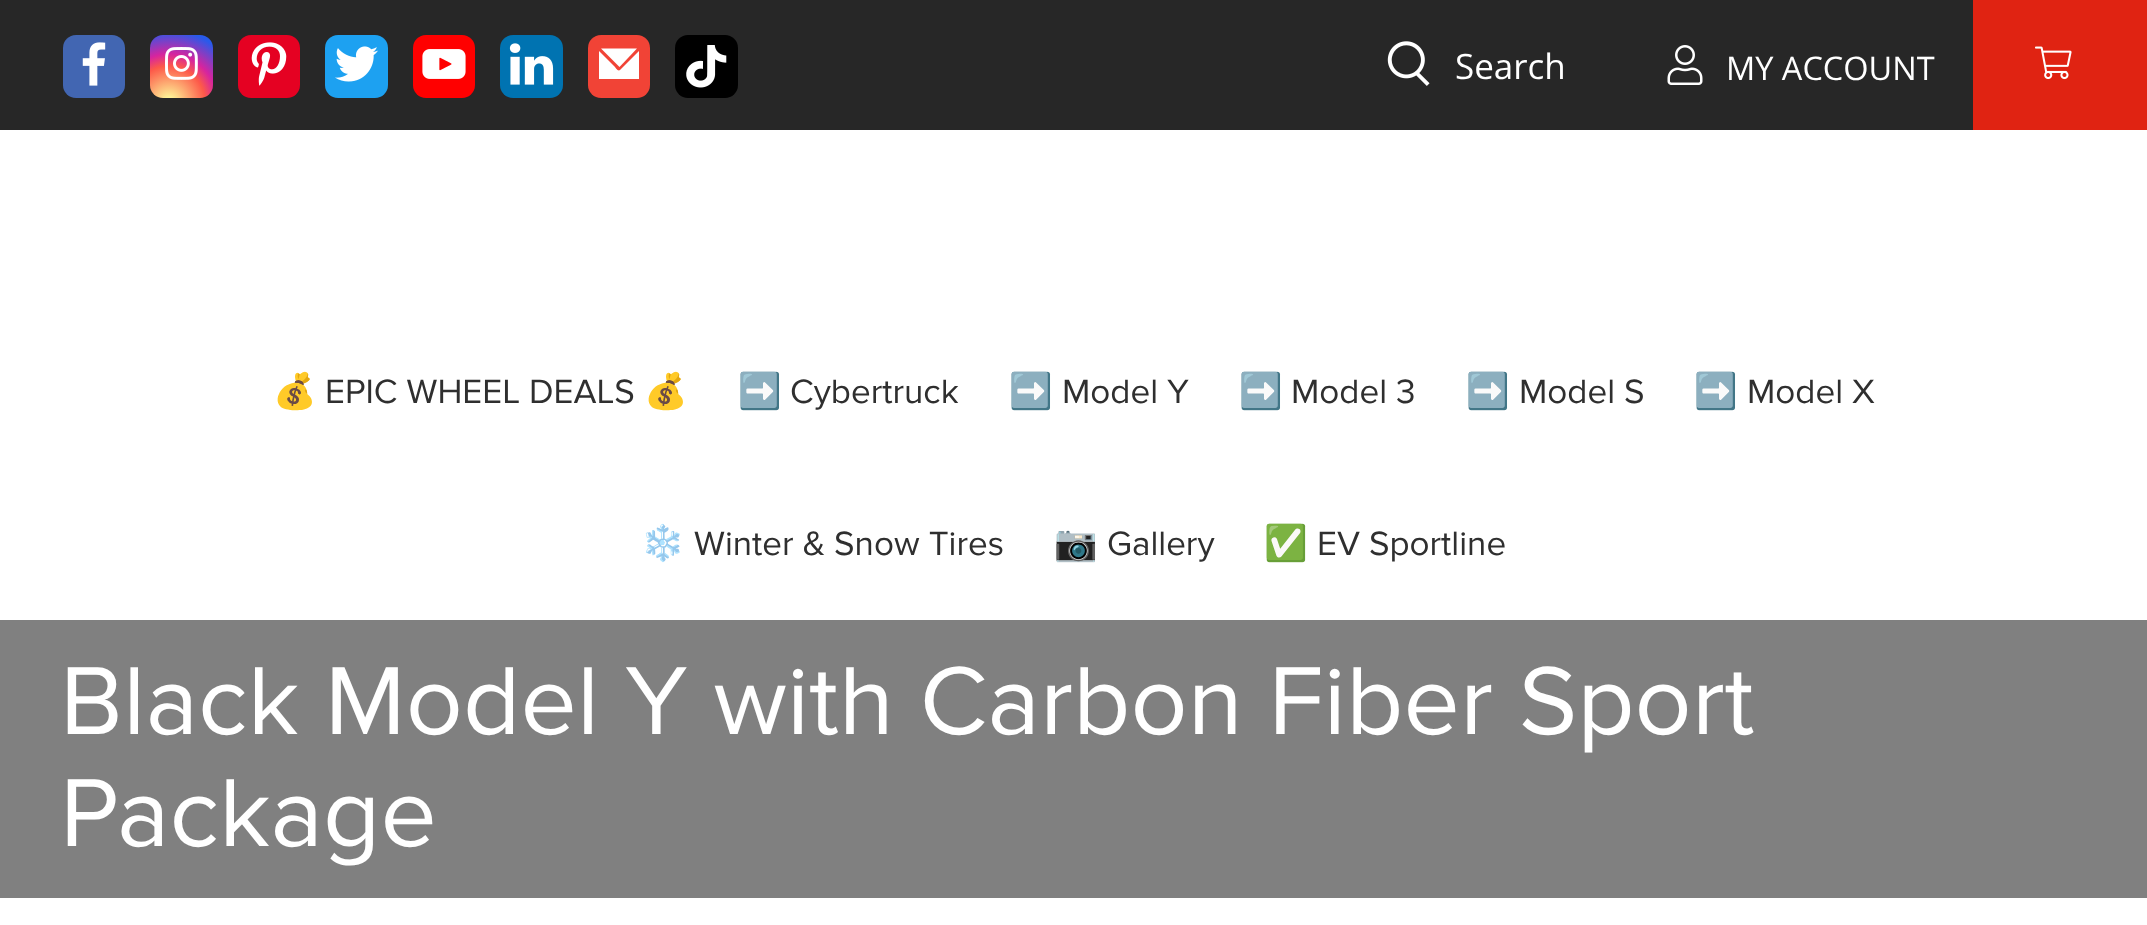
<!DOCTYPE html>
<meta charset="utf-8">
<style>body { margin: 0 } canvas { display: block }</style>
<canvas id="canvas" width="2147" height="925"></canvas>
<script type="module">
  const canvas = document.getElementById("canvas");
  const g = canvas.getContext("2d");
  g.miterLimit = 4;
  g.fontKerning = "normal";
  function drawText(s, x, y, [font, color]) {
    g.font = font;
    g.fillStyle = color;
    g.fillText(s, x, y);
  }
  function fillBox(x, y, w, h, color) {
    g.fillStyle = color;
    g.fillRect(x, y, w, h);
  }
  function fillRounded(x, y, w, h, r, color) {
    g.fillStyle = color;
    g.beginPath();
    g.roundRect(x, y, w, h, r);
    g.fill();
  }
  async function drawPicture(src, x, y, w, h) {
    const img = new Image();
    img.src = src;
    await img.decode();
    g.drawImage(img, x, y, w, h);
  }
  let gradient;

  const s1 = ["35px Open Sans", "#FFFFFF"];
  const s2 = ["32.5px Open Sans", "#FFFFFF"];
  const s3 = ["35px Noto Color Emoji", "#2F2F2F"];
  const s4 = ["35px Proxima Nova", "#2F2F2F"];
  const s5 = ["100px Proxima Nova", "#FFFFFF"];

  fillBox(0, 0, 2147, 925, "#FFFFFF");
  fillBox(0, 0, 1973, 130, "#272727");
  fillRounded(63, 35, 62, 63, 13, "#4266B2");
  await drawPicture("pic1.png", 82, 42, 24, 44);
  gradient = g.createRadialGradient(169, 102, 0, 169, 102, 80);
  gradient.addColorStop(0, "#FDF497");
  gradient.addColorStop(0.05, "#FDF497");
  gradient.addColorStop(0.45, "#FD5949");
  gradient.addColorStop(0.6, "#D6249F");
  gradient.addColorStop(0.9, "#285AEB");
  g.fillStyle = gradient;
  g.beginPath();
  g.roundRect(150, 35, 63, 63, 13);
  g.fill();
  await drawPicture("pic2.png", 165, 47, 33, 33);
  fillRounded(238, 35, 62, 63, 13, "#E50122");
  await drawPicture("pic3.png", 251, 42, 36, 44);
  fillRounded(325, 35, 63, 63, 13, "#1DA1F1");
  await drawPicture("pic4.png", 335, 46, 43, 36);
  fillRounded(413, 35, 62, 63, 13, "#FF0000");
  await drawPicture("pic5.png", 422, 49, 44, 30);
  fillRounded(500, 35, 63, 63, 13, "#0073B1");
  await drawPicture("pic6.png", 509, 43, 45, 42);
  fillRounded(588, 35, 62, 63, 13, "#F14336");
  g.fillStyle = "#FFFFFF";
  g.beginPath();
  g.moveTo(620, 70);
  g.bezierCurveTo(618, 72, 615, 67, 615, 67);
  g.lineTo(599, 51);
  g.lineTo(599, 79);
  g.lineTo(639, 79);
  g.lineTo(639, 51);
  g.closePath();
  g.fill();
  g.beginPath();
  g.moveTo(637, 48.5);
  g.lineTo(601, 48.5);
  g.lineTo(619.5, 67);
  g.closePath();
  g.fill();
  fillRounded(675, 35, 63, 63, 13, "#000000");
  await drawPicture("pic7.png", 686, 45, 41, 43);
  await drawPicture("pic8.png", 1387, 41, 43, 45);
  drawText("Search", 1455, 79, s1);
  await drawPicture("pic9.png", 1667, 45, 36, 40);
  drawText("MY ACCOUNT", 1726, 80, s2);
  fillBox(1973, 0, 174, 130, "#E02312");
  await drawPicture("pic10.png", 2035, 46, 37, 34);
  drawText("💰", 273, 403, s3);
  drawText("EPIC WHEEL DEALS", 325, 403, s4);
  drawText("💰", 644, 403, s3);
  drawText("➡️", 738, 403, s3);
  drawText("Cybertruck", 790, 403, s4);
  drawText("➡️", 1009, 403, s3);
  drawText("Model Y", 1062, 403, s4);
  drawText("➡️", 1239, 403, s3);
  drawText("Model 3", 1291, 403, s4);
  drawText("➡️", 1466, 403, s3);
  drawText("Model S", 1519, 403, s4);
  drawText("➡️", 1694, 403, s3);
  drawText("Model X", 1747, 403, s4);
  drawText("❄️", 641, 555, s3);
  drawText("Winter & Snow Tires", 694, 555, s4);
  drawText("📷", 1054, 555, s3);
  drawText("Gallery", 1107, 555, s4);
  drawText("✅", 1264, 555, s3);
  drawText("EV Sportline", 1317, 555, s4);
  fillBox(0, 620, 2147, 278, "#808080");
  drawText("Black Model Y with Carbon Fiber Sport", 60, 734, s5);
  drawText("Package", 60, 846, s5);
</script>
